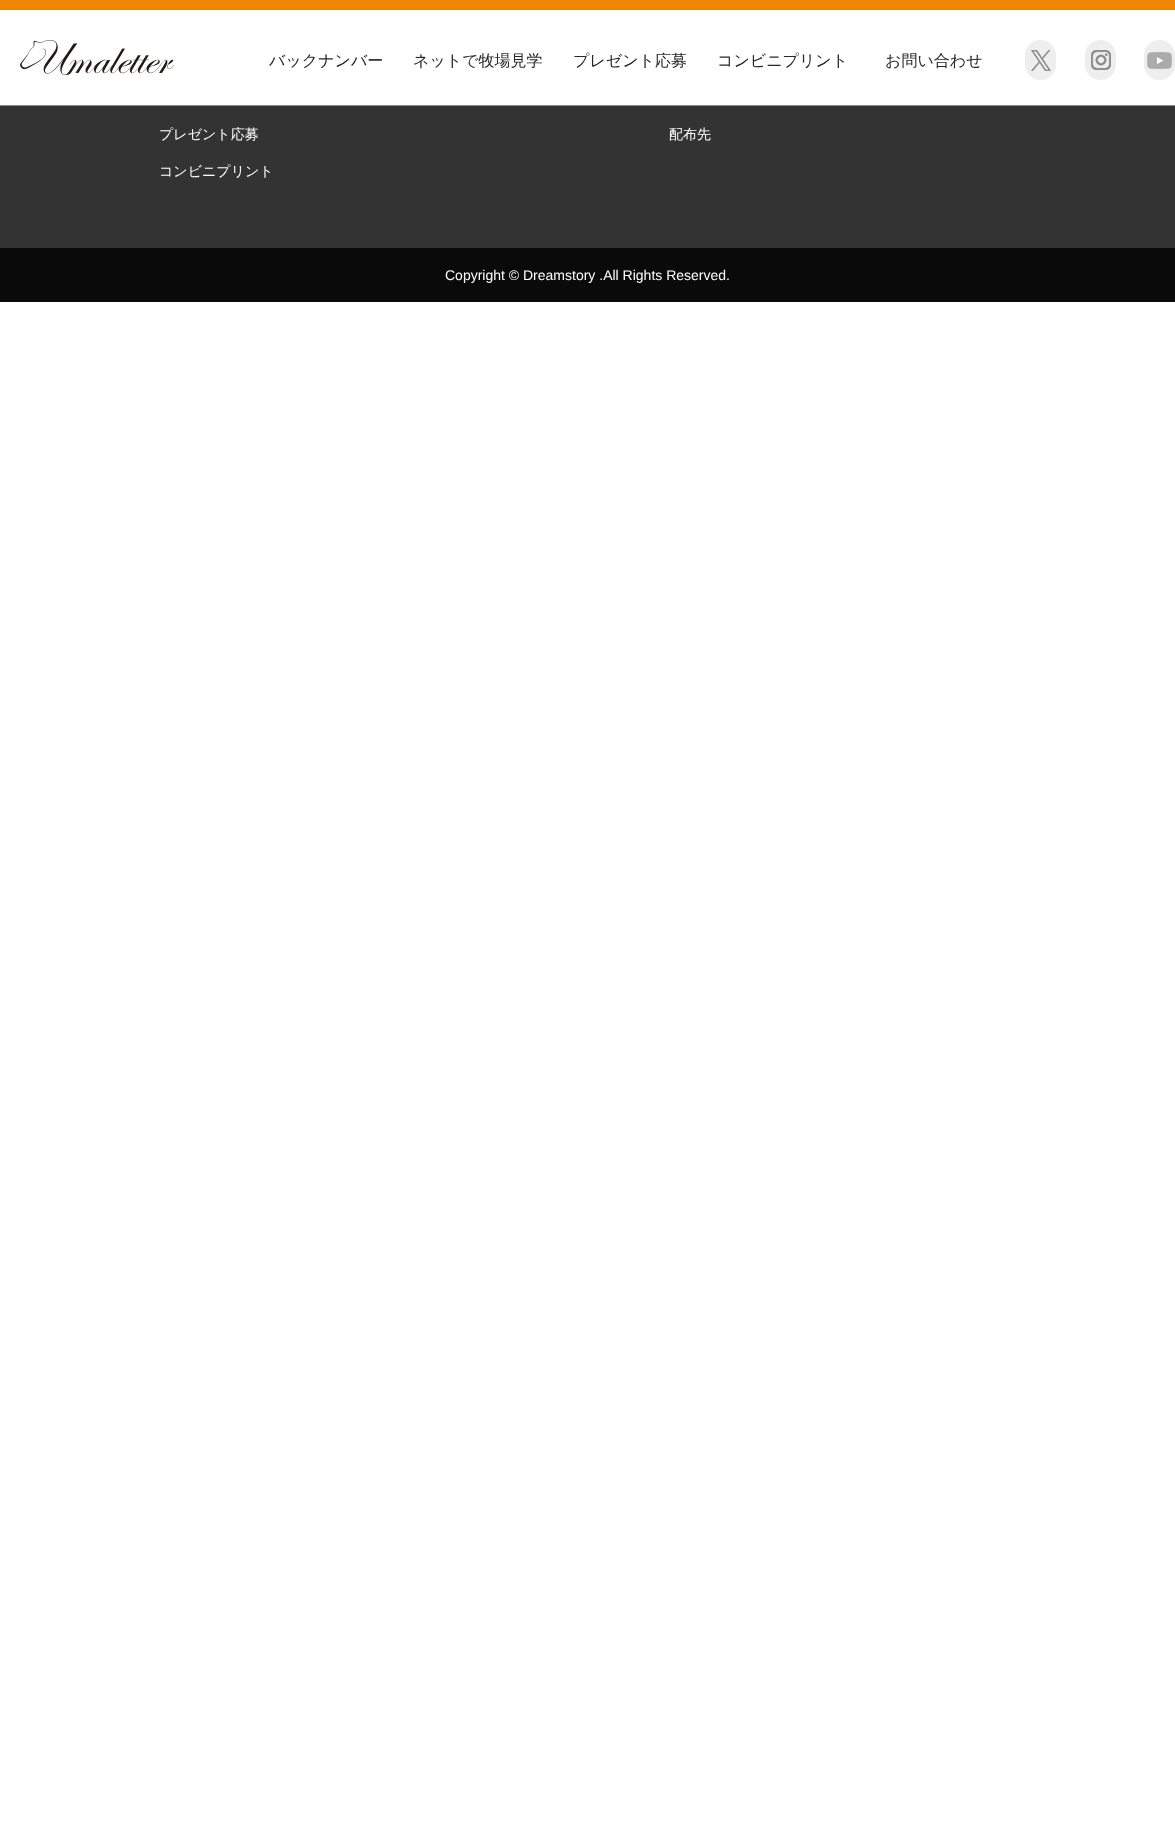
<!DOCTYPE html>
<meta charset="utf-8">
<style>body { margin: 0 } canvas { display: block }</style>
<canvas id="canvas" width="1175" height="1831"></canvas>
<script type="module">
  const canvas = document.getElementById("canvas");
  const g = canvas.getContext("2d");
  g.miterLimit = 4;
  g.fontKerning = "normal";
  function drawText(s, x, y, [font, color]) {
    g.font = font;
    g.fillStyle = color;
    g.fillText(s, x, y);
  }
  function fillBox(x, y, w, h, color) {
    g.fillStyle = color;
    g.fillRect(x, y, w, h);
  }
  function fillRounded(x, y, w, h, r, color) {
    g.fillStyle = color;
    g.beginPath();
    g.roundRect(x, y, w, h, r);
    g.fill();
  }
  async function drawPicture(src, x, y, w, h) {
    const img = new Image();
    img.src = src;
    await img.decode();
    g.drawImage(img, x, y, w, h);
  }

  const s1 = ["500 16px WenQuanYi Zen Hei", "#262626"];
  const s2 = ["500 14px WenQuanYi Zen Hei", "#FFFFFF"];
  const s3 = ["14px Liberation Sans", "#FFFFFF"];

  fillBox(0, 0, 1175, 1831, "#FFFFFF");
  fillBox(0, 105, 1175, 143, "#333333");
  g.fillStyle = "rgba(184, 199, 210, 0.6)";
  g.filter = "blur(0.5px)";
  g.beginPath();
  g.rect(0, 1, 1175, 105);
  g.fill();
  g.filter = "none";
  fillBox(0, 10, 1175, 95, "#FFFFFF");
  fillBox(0, 0, 1175, 10, "#F18700");
  await drawPicture("pic1.png", 20, 40, 154, 35);
  drawText("バックナンバー", 269, 66, s1);
  drawText("ネットで牧場見学", 413, 66, s1);
  drawText("プレゼント応募", 573, 66, s1);
  drawText("コンビニプリント", 717, 66, s1);
  drawText("お問い合わせ", 885, 66, s1);
  fillRounded(1025, 40, 31, 40, 15.5, "#EEEEEE");
  await drawPicture("pic2.png", 1031, 50, 20, 21);
  fillRounded(1085, 40, 31, 40, 15.5, "#EEEEEE");
  await drawPicture("pic3.png", 1091, 50, 20, 20);
  fillRounded(1144, 40, 31, 40, 15.5, "#EEEEEE");
  await drawPicture("pic4.png", 1147, 52, 25, 17);
  drawText("プレゼント応募", 159, 139, s2);
  drawText("コンビニプリント", 159, 176, s2);
  drawText("配布先", 669, 139, s2);
  fillBox(0, 248, 1175, 54, "#0A0A0A");
  drawText("Copyright © Dreamstory .All Rights Reserved.", 445, 280, s3);
</script>
